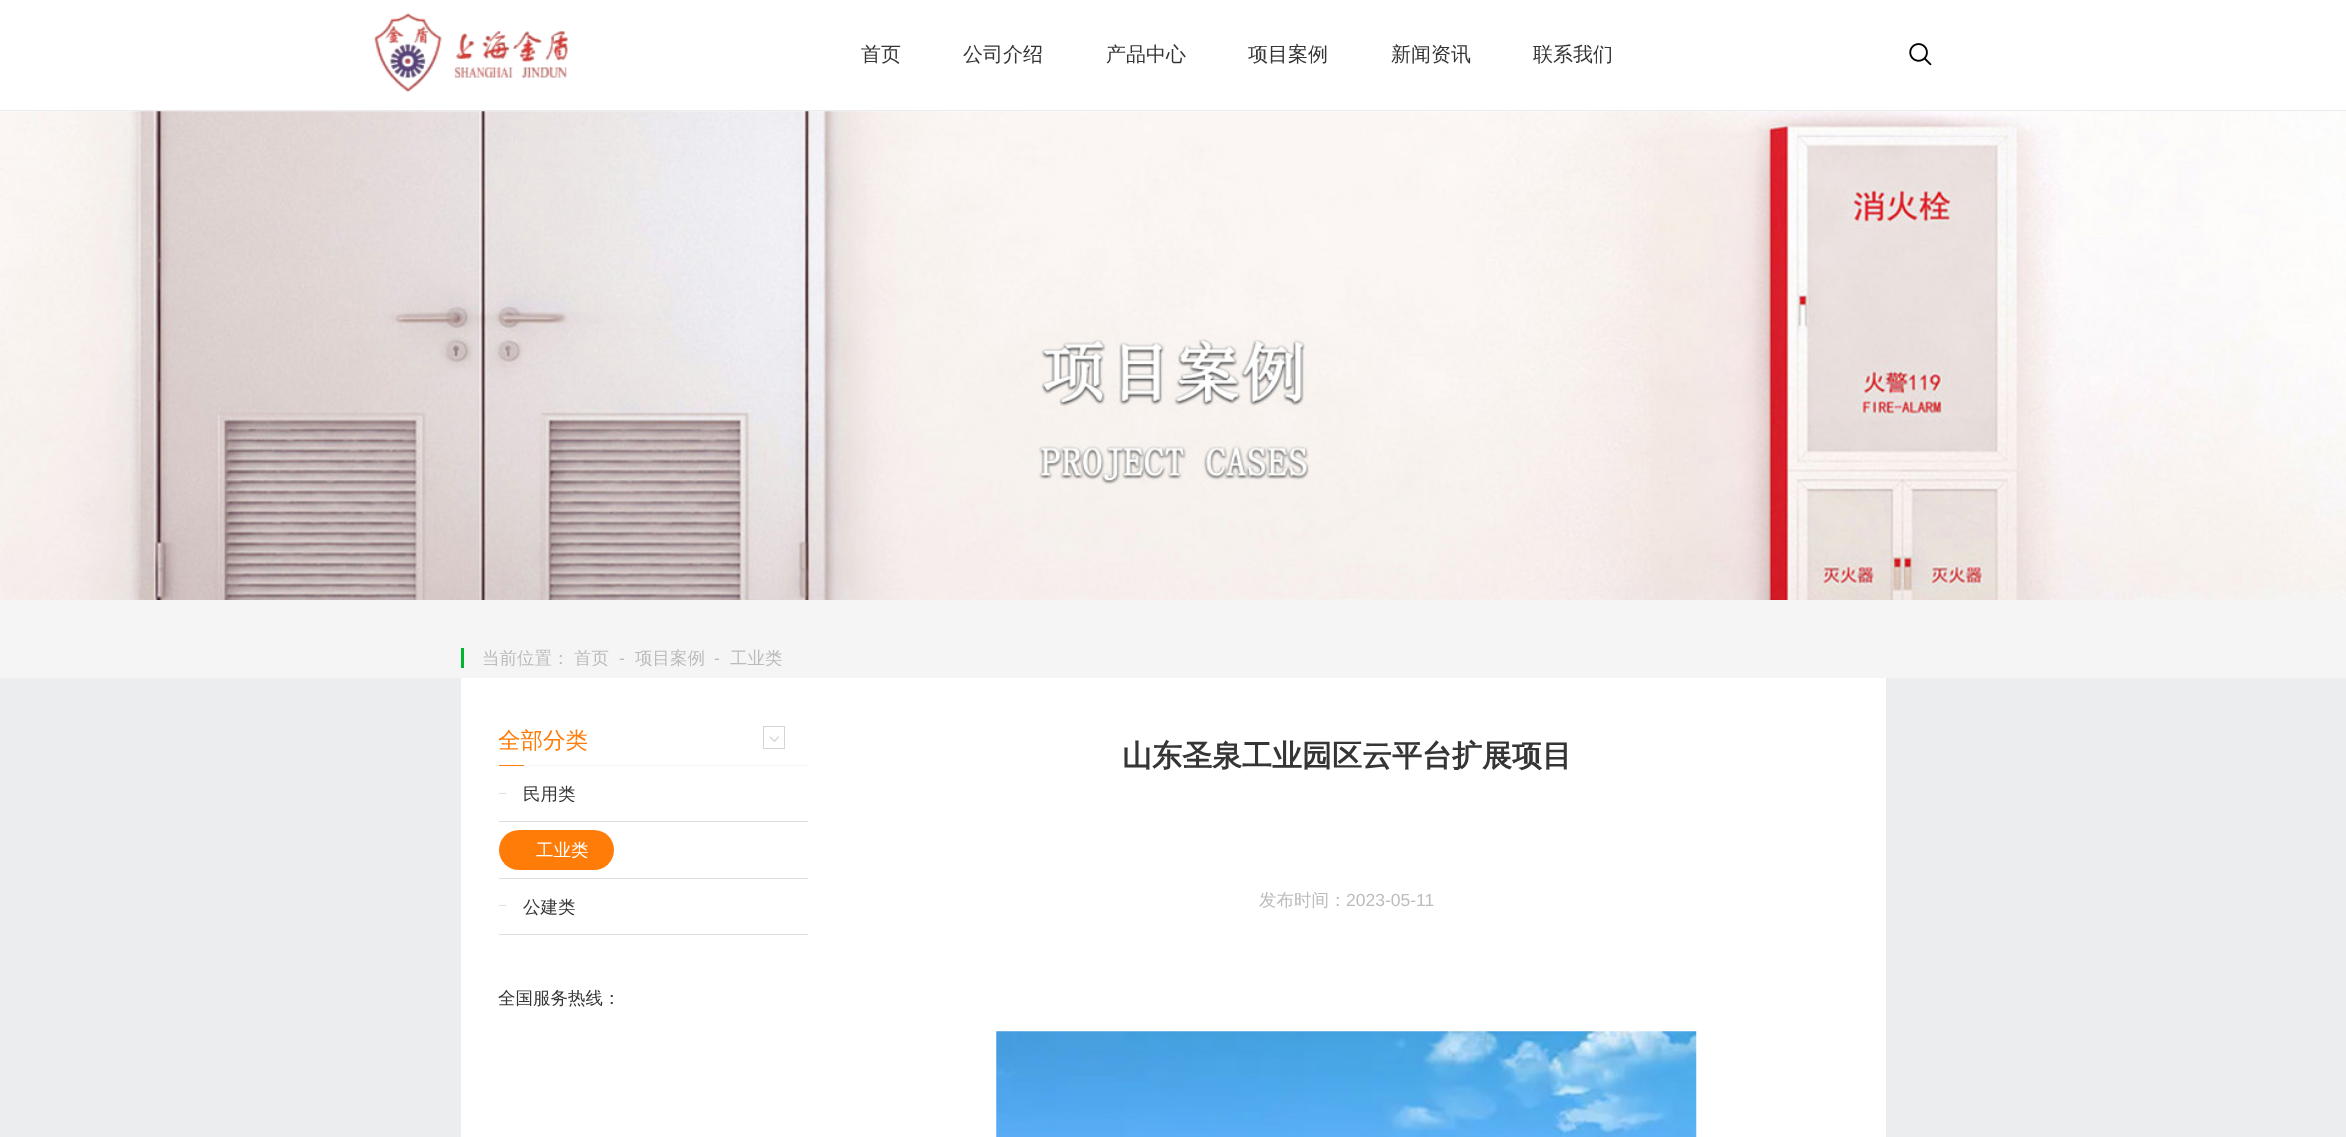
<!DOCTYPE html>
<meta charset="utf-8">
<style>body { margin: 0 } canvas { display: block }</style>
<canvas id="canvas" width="2346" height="1137"></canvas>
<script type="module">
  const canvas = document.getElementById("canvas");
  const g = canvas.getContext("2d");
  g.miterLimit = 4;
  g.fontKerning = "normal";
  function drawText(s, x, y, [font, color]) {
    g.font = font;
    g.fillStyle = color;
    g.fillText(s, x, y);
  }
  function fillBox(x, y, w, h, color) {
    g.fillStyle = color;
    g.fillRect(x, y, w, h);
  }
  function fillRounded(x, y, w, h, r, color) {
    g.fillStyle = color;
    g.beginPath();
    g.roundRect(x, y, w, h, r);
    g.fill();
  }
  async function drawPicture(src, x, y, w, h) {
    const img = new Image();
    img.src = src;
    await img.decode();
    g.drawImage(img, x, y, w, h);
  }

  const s1 = ["500 20px WenQuanYi Zen Hei", "#353535"];
  const s2 = ["500 17.5px WenQuanYi Zen Hei", "#BCBCBC"];
  const s3 = ["17.5px Liberation Sans", "#BCBCBC"];
  const s4 = ["500 22.5px WenQuanYi Zen Hei", "#FF7C08"];
  const s5 = ["500 17.5px WenQuanYi Zen Hei", "#353535"];
  const s6 = ["500 17.5px WenQuanYi Zen Hei", "#FFFFFF"];
  const s7 = ["bold 30px WenQuanYi Zen Hei", "#353535"];

  fillBox(0, 0, 2346, 1137, "#FFFFFF");
  fillBox(0, 110, 2346, 1, "#EBEBEB");
  await drawPicture("pic1.png", 374, 13, 194, 79);
  drawText("首页", 861, 61, s1);
  drawText("公司介绍", 963, 61, s1);
  drawText("产品中心", 1106, 61, s1);
  drawText("项目案例", 1248, 61, s1);
  drawText("新闻资讯", 1391, 61, s1);
  drawText("联系我们", 1533, 61, s1);
  await drawPicture("pic2.png", 1909, 43, 23, 23);
  await drawPicture("pic3.png", 0, 111, 2346, 489);
  fillBox(0, 600, 2346, 78, "#F5F5F5");
  drawText("当前位置：", 482, 664, s2);
  fillBox(461, 648, 3, 20, "#00B62E");
  drawText("首页", 574, 664, s2);
  drawText("-", 619, 664, s3);
  drawText("项目案例", 635, 664, s2);
  drawText("-", 714, 664, s3);
  drawText("工业类", 730, 664, s2);
  fillBox(0, 678, 2346, 459, "#EBEDEF");
  fillBox(461, 678, 1425, 459, "#FFFFFF");
  fillBox(524, 765, 284, 1, "#F6F6F6");
  drawText("全部分类", 498, 748, s4);
  g.strokeStyle = "#D4D4D4";
  g.strokeRect(763.5, 726.5, 21, 22);
  await drawPicture("pic4.png", 769, 736, 11, 6);
  fillBox(499, 765, 25, 1, "#FF7C08");
  fillBox(499, 821, 309, 1, "#DEDEDE");
  fillBox(499, 793, 7, 1, "#DEDEDE");
  drawText("民用类", 523, 800, s5);
  fillBox(499, 878, 309, 1, "#DEDEDE");
  fillRounded(499, 830, 115, 40, 20, "#FF7C08");
  drawText("工业类", 536, 856, s6);
  fillBox(499, 934, 309, 1, "#DEDEDE");
  fillBox(499, 905, 7, 1, "#DEDEDE");
  drawText("公建类", 523, 913, s5);
  drawText("全国服务热线：", 498, 1004, s5);
  drawText("山东圣泉工业园区云平台扩展项目", 1122, 766, s7);
  drawText("发布时间：", 1259, 906, s2);
  drawText("2023-05-11", 1346, 906, s3);
  await drawPicture("pic5.png", 996, 1031, 701, 106);
</script>
